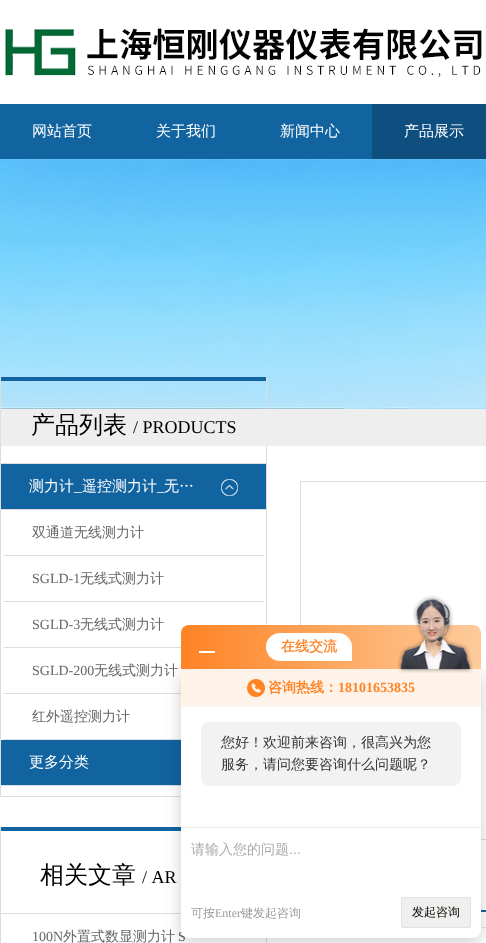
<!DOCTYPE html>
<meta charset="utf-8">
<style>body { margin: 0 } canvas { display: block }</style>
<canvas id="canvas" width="486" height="943"></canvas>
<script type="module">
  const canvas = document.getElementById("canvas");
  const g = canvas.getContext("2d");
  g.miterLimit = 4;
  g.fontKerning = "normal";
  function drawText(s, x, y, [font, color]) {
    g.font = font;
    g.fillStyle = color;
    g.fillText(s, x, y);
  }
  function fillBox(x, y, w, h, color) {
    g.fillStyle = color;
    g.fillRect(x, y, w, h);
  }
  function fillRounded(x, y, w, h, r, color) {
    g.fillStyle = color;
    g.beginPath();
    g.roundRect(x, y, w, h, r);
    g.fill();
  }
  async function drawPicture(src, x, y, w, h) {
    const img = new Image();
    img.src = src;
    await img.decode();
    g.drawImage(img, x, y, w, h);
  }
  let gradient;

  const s1 = ["500 15px WenQuanYi Zen Hei", "#FFFFFF"];
  const s2 = ["500 24px WenQuanYi Zen Hei", "#000000"];
  const s3 = ["18px Liberation Serif", "#000000"];
  const s4 = ["15px Liberation Serif", "#FFFFFF"];
  const s5 = ["500 14px WenQuanYi Zen Hei", "#666666"];
  const s6 = ["14px Liberation Serif", "#666666"];
  const s7 = ["bold 14px WenQuanYi Zen Hei", "#FB8B36"];
  const s8 = ["bold 14px WenQuanYi Zen Hei", "#FF8426"];
  const s9 = ["bold 14px Liberation Serif", "#FF8426"];
  const s10 = ["500 14px WenQuanYi Zen Hei", "#333333"];
  const s11 = ["500 14px WenQuanYi Zen Hei", "#AAAAAA"];
  const s12 = ["14px Liberation Sans", "#AAAAAA"];
  const s13 = ["500 12px WenQuanYi Zen Hei", "#999999"];
  const s14 = ["12px Liberation Serif", "#999999"];
  const s15 = ["500 12px WenQuanYi Zen Hei", "#000000"];

  fillBox(0, 0, 486, 943, "#FFFFFF");
  fillBox(1, 409, 264, 37, "#EEEEEE");
  await drawPicture("pic1.png", 5, 28, 477, 49);
  fillBox(0, 104, 372, 55, "#1264A0");
  drawText("网站首页", 32, 136, s1);
  drawText("关于我们", 156, 136, s1);
  drawText("新闻中心", 280, 136, s1);
  fillBox(372, 104, 114, 55, "#0E4F80");
  drawText("产品展示", 404, 136, s1);
  await drawPicture("pic2.png", 0, 159, 486, 250);
  fillBox(266, 377, 1, 248, "#DDDDDD");
  fillBox(0, 796, 181, 1, "#DDDDDD");
  fillBox(0, 377, 1, 420, "#DDDDDD");
  fillBox(1, 377, 265, 4, "#1264A0");
  fillBox(1, 463, 265, 1, "#DDDDDD");
  drawText("产品列表", 31, 433, s2);
  drawText("/ PRODUCTS", 133, 433, s3);
  fillBox(1, 464, 265, 45, "#1264A0");
  await drawPicture("pic3.png", 221, 479, 17, 17);
  fillBox(1, 509, 265, 1, "#DDDDDD");
  drawText("测力计", 29, 491, s1);
  drawText("_", 74, 491, s4);
  drawText("遥控测力计", 82, 491, s1);
  drawText("_", 157, 491, s4);
  drawText("无…", 164, 491, s1);
  fillBox(4, 555, 260, 1, "#DDDDDD");
  drawText("双通道无线测力计", 32, 537, s5);
  fillBox(4, 601, 260, 1, "#DDDDDD");
  drawText("SGLD-1", 32, 583, s6);
  drawText("无线式测力计", 80, 583, s5);
  fillBox(4, 647, 177, 1, "#DDDDDD");
  drawText("SGLD-3", 32, 629, s6);
  drawText("无线式测力计", 80, 629, s5);
  fillBox(4, 693, 177, 1, "#DDDDDD");
  drawText("SGLD-200", 32, 675, s6);
  drawText("无线式测力计", 94, 675, s5);
  fillBox(4, 739, 177, 1, "#DDDDDD");
  drawText("红外遥控测力计", 32, 721, s5);
  fillBox(1, 740, 180, 45, "#1264A0");
  fillBox(1, 785, 180, 1, "#DDDDDD");
  drawText("更多分类", 29, 767, s1);
  fillBox(266, 938, 1, 5, "#DDDDDD");
  fillBox(0, 827, 1, 116, "#DDDDDD");
  fillBox(1, 827, 180, 4, "#1264A0");
  fillBox(1, 913, 180, 1, "#DDDDDD");
  drawText("相关文章", 40, 883, s2);
  g.wordSpacing = "1px";
  drawText("/ AR", 142, 883, s3);
  g.wordSpacing = "0px";
  drawText("100N", 32, 941, s6);
  drawText("外置式数显测力计", 63, 941, s5);
  drawText("S", 178, 941, s6);
  fillBox(265, 409, 221, 37, "#EEEEEE");
  g.strokeStyle = "#DDDDDD";
  g.strokeRect(300.5, 481.5, 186, 358);
  fillBox(481, 910, 5, 2, "#1264A0");
  fillBox(481, 927, 5, 1, "#E6E5E5");
  g.fillStyle = "rgba(0, 0, 0, 0.2)";
  g.filter = "blur(8px)";
  g.beginPath();
  g.roundRect(181, 673, 300, 269, 8);
  g.fill();
  g.filter = "none";
  gradient = g.createLinearGradient(181, 647, 481, 647);
  gradient.addColorStop(0, "#FF8324");
  gradient.addColorStop(1, "#FECB9C");
  g.fillStyle = gradient;
  g.beginPath();
  g.roundRect(181, 625, 300, 44, [8, 8, 0, 0]);
  g.fill();
  fillBox(199, 651, 16, 2, "#FFFFFF");
  g.beginPath();
  g.roundRect(266, 633, 86, 28, [14, 14, 0, 14]);
  g.fill();
  drawText("在线交流", 281, 651, s7);
  g.fillStyle = "#FFFFFF";
  g.beginPath();
  g.roundRect(181, 669, 300, 269, [0, 0, 8, 8]);
  g.fill();
  fillBox(181, 669, 300, 38, "#FFF3E9");
  await drawPicture("pic4.png", 397, 595, 76, 78);
  await drawPicture("pic5.png", 247, 679, 18, 18);
  drawText("咨询热线：", 268, 692, s8);
  drawText("18101653835", 338, 692, s9);
  fillRounded(201, 722, 260, 64, 8, "#F2F2F2");
  drawText("您好！欢迎前来咨询，很高兴为您", 221, 747, s10);
  drawText("服务，请问您要咨询什么问题呢？", 221, 769, s10);
  fillBox(181, 827, 300, 1, "#EAEAEA");
  drawText("请输入您的问题", 191, 854, s11);
  drawText("...", 289, 854, s12);
  drawText("可按", 191, 917, s13);
  drawText("Enter", 215, 917, s14);
  drawText("键发起咨询", 241, 917, s13);
  g.fillStyle = "#F0EFED";
  g.beginPath();
  g.roundRect(401.5, 897.5, 69, 30, 1.5);
  g.fill();
  g.strokeStyle = "#E2E2E2";
  g.stroke();
  drawText("发起咨询", 412, 916, s15);
</script>
